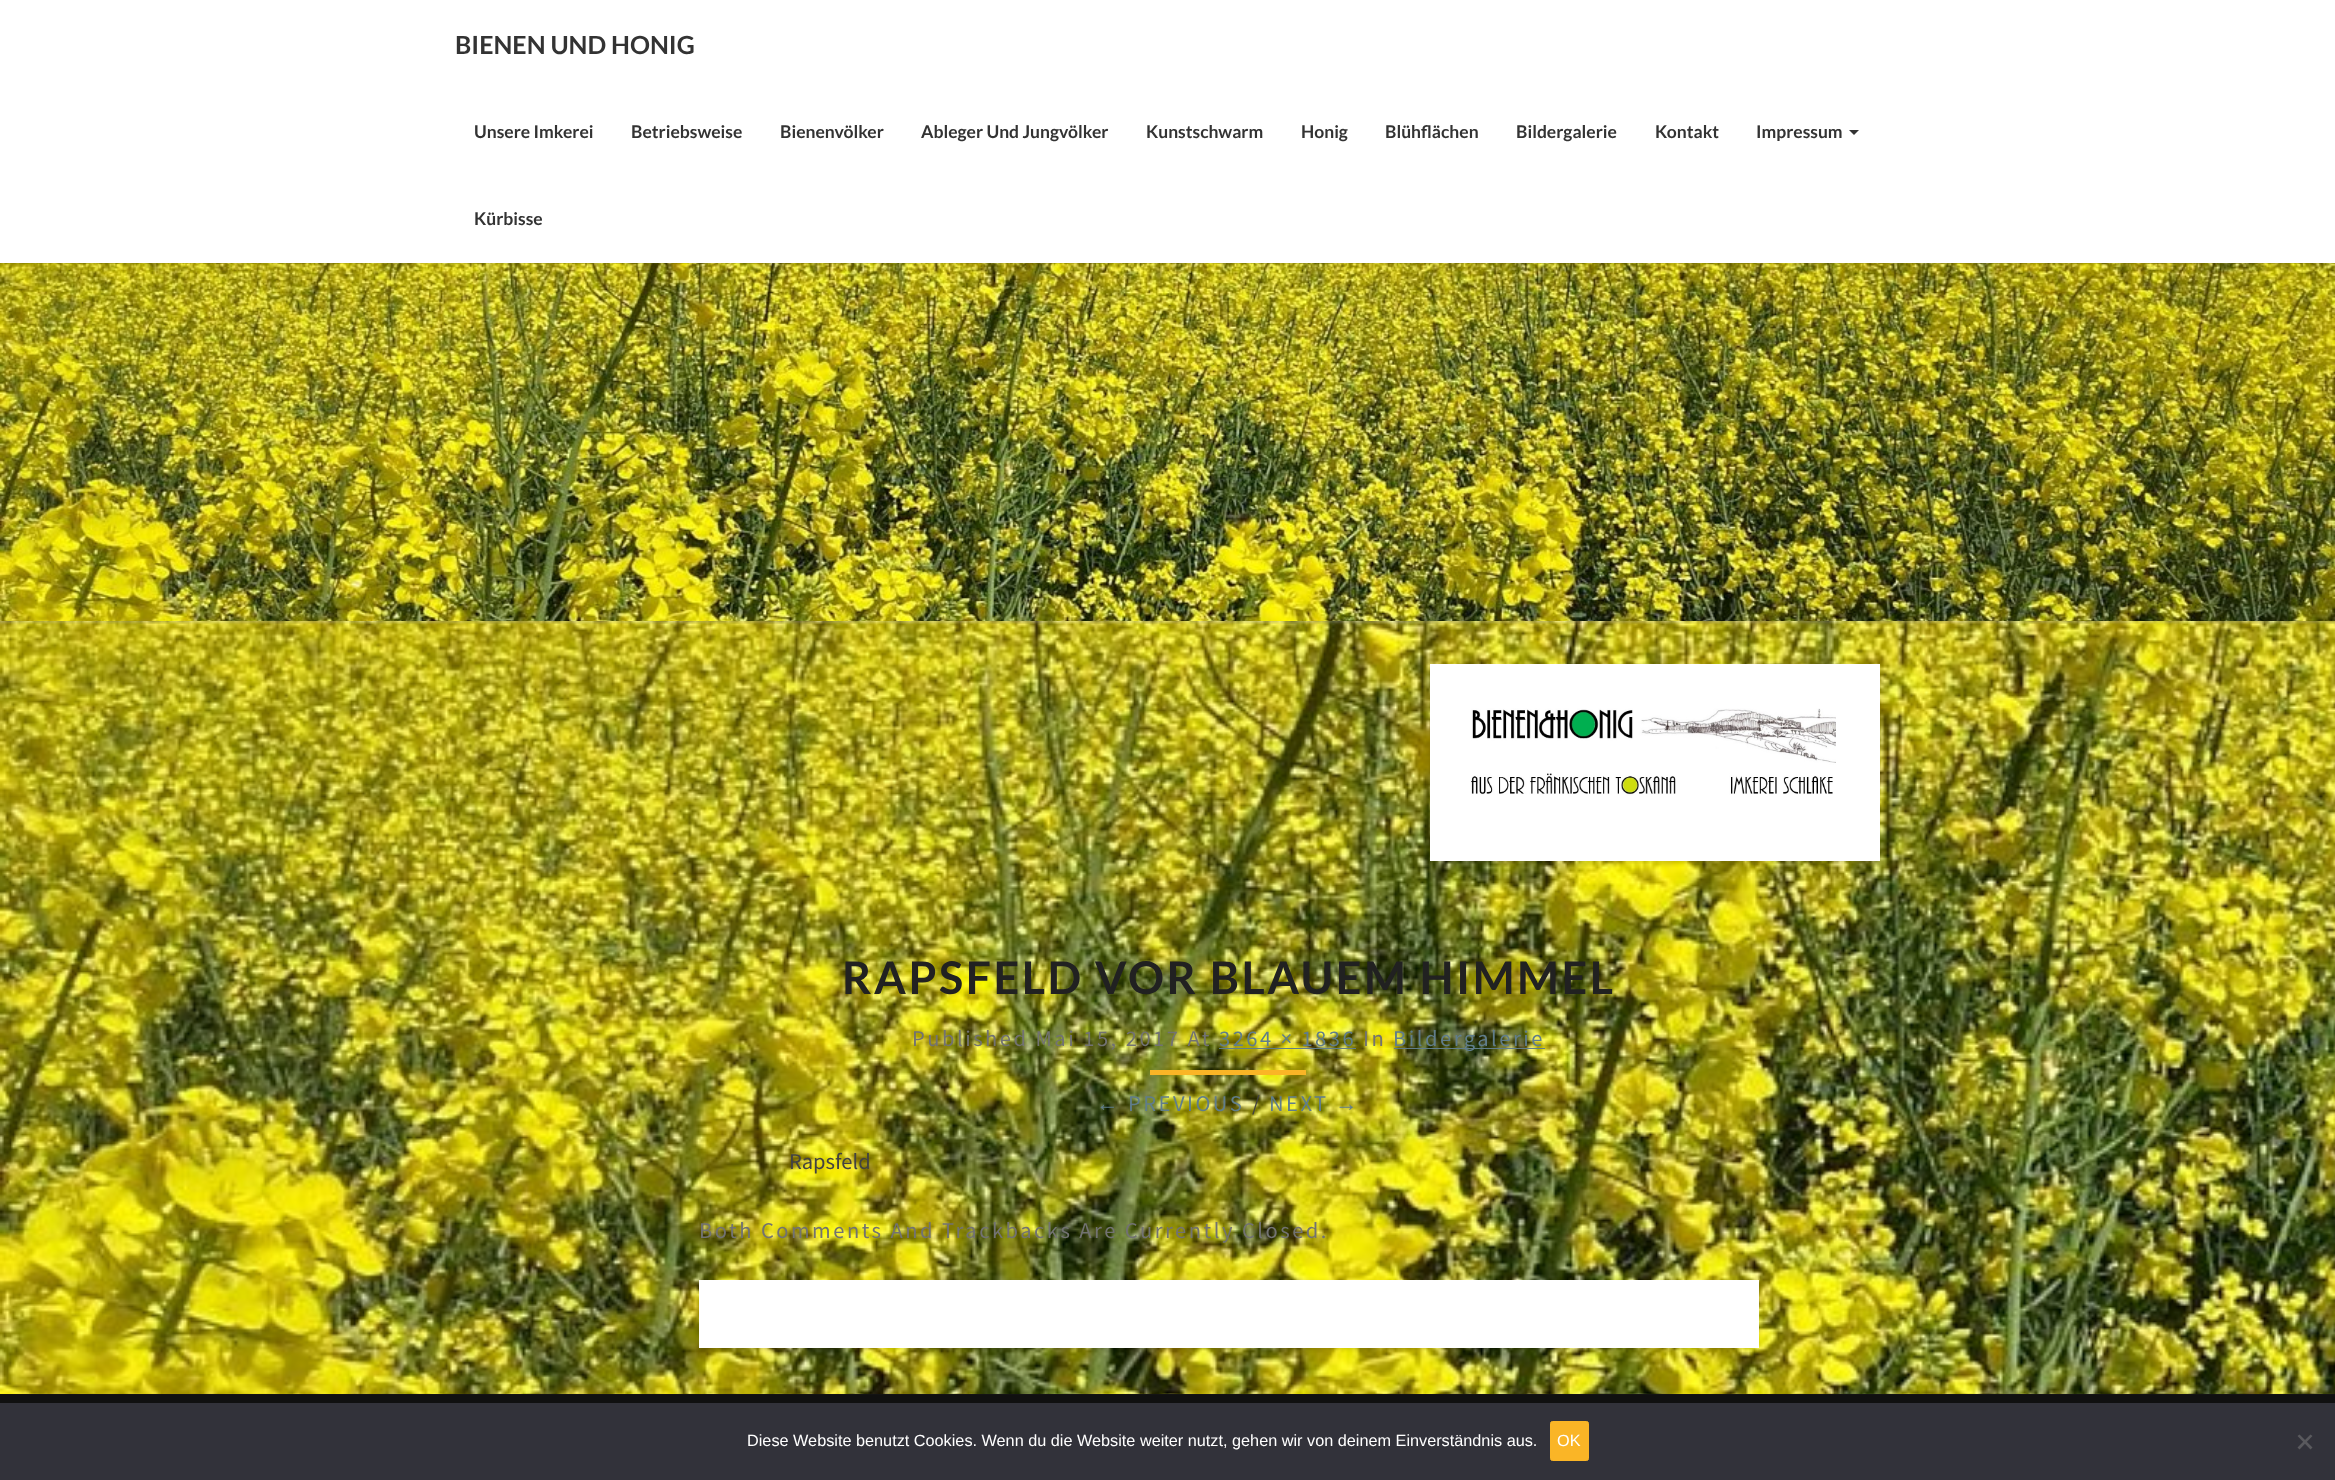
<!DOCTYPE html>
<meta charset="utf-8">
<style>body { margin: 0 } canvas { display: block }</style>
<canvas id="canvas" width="2335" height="1480"></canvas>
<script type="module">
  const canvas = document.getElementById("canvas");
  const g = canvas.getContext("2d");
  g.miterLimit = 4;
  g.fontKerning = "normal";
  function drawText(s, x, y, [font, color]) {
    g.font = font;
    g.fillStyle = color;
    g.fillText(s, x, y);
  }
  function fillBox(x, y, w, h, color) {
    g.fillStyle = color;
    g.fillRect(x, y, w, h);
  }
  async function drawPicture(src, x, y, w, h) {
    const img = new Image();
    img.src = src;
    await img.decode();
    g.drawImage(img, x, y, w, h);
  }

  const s1 = ["bold 25px Lato", "#333333"];
  const s2 = ["bold 17.5px Lato", "#333333"];
  const s3 = ["bold 45px Lato", "#212121"];
  const s4 = ["22.5px Source Sans Pro", "#727272"];
  const s5 = ["22.5px Source Sans Pro", "#607D8B"];
  const s6 = ["22.5px Liberation Sans", "#607D8B"];
  const s7 = ["22.5px Source Sans Pro", "#424242"];
  const s8 = ["16.25px Liberation Sans", "#FFFFFF"];

  fillBox(0, 0, 2335, 1480, "#FFFFFF");
  await drawPicture("pic1.png", 0, 621, 2335, 773);
  g.fillStyle = "rgba(182, 182, 182, 0.3)";
  g.filter = "blur(1px)";
  g.beginPath();
  g.rect(-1, -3, 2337, 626);
  g.fill();
  g.filter = "none";
  await drawPicture("pic2.png", 0, 263, 2335, 358);
  g.fillStyle = "rgba(100, 100, 0, 0.2)";
  g.filter = "blur(0.5px)";
  g.beginPath();
  g.rect(0, 1, 2335, 263);
  g.fill();
  g.filter = "none";
  fillBox(0, 0, 2335, 263, "#FFFFFF");
  drawText("BIENEN UND HONIG", 455, 54, s1);
  drawText("Unsere Imkerei", 474, 138, s2);
  drawText("Betriebsweise", 631, 138, s2);
  drawText("Bienenvölker", 780, 138, s2);
  drawText("Ableger Und Jungvölker", 921, 138, s2);
  drawText("Kunstschwarm", 1146, 138, s2);
  drawText("Honig", 1301, 138, s2);
  drawText("Blühflächen", 1385, 138, s2);
  drawText("Bildergalerie", 1516, 138, s2);
  drawText("Kontakt", 1655, 138, s2);
  drawText("Impressum", 1756, 138, s2);
  g.beginPath();
  g.moveTo(1849, 130);
  g.lineTo(1859, 130);
  g.lineTo(1854, 135);
  g.closePath();
  g.fill();
  drawText("Kürbisse", 474, 225, s2);
  g.fillStyle = "rgba(0, 0, 0, 0.15)";
  g.filter = "blur(2px)";
  g.beginPath();
  g.rect(1430, 665, 450, 198);
  g.fill();
  g.filter = "none";
  fillBox(1430, 664, 450, 197, "#FFFFFF");
  await drawPicture("pic3.png", 1471, 708, 365, 88);
  g.letterSpacing = "2.5px";
  drawText("RAPSFELD VOR BLAUEM HIMMEL", 842, 994, s3);
  drawText("Published Mai 15, 2017 At", 912, 1046, s4);
  drawText("3264 × 1836", 1219, 1046, s5);
  fillBox(1219, 1048, 137, 1, "#607D8B");
  drawText("In", 1363, 1046, s4);
  fillBox(1394, 1048, 151, 1, "#607D8B");
  drawText("Bildergalerie", 1393, 1046, s5);
  fillBox(1150, 1070, 156, 5, "#FAB526");
  drawText("←", 1096, 1111, s6);
  drawText("PREVIOUS", 1128, 1111, s5);
  drawText("/", 1252, 1111, s7);
  drawText("NEXT", 1269, 1111, s5);
  drawText("→", 1335, 1111, s6);
  g.letterSpacing = "0px";
  drawText("Rapsfeld", 789, 1169, s7);
  g.letterSpacing = "2.5px";
  drawText("Both Comments And Trackbacks Are Currently Closed.", 699, 1238, s4);
  g.fillStyle = "rgba(0, 0, 0, 0.15)";
  g.filter = "blur(2px)";
  g.beginPath();
  g.rect(699, 1281, 1060, 68);
  g.fill();
  g.filter = "none";
  fillBox(699, 1280, 1060, 68, "#FFFFFF");
  fillBox(0, 1394, 2335, 1, "#131313");
  fillBox(0, 1395, 2335, 8, "#101010");
  fillBox(0, 1403, 2335, 77, "#32323A");
  g.letterSpacing = "0px";
  drawText("Diese Website benutzt Cookies. Wenn du die Website weiter nutzt, gehen wir von deinem Einverständnis aus.", 747, 1446, s8);
  g.fillStyle = "#FAB526";
  g.beginPath();
  g.roundRect(1550.5, 1421.5, 38, 39, 2);
  g.fill();
  g.strokeStyle = "#FAB526";
  g.stroke();
  drawText("OK", 1557, 1446, s8);
  g.fillStyle = "#59595D";
  g.beginPath();
  g.moveTo(2310.5, 1434.5);
  g.lineTo(2312.5, 1436);
  g.lineTo(2299.5, 1449.5);
  g.lineTo(2297.5, 1447.5);
  g.closePath();
  g.fill();
  g.beginPath();
  g.moveTo(2297.5, 1436);
  g.lineTo(2299.5, 1434.5);
  g.lineTo(2312.5, 1447.5);
  g.lineTo(2310.5, 1449.5);
  g.closePath();
  g.fill();
</script>
